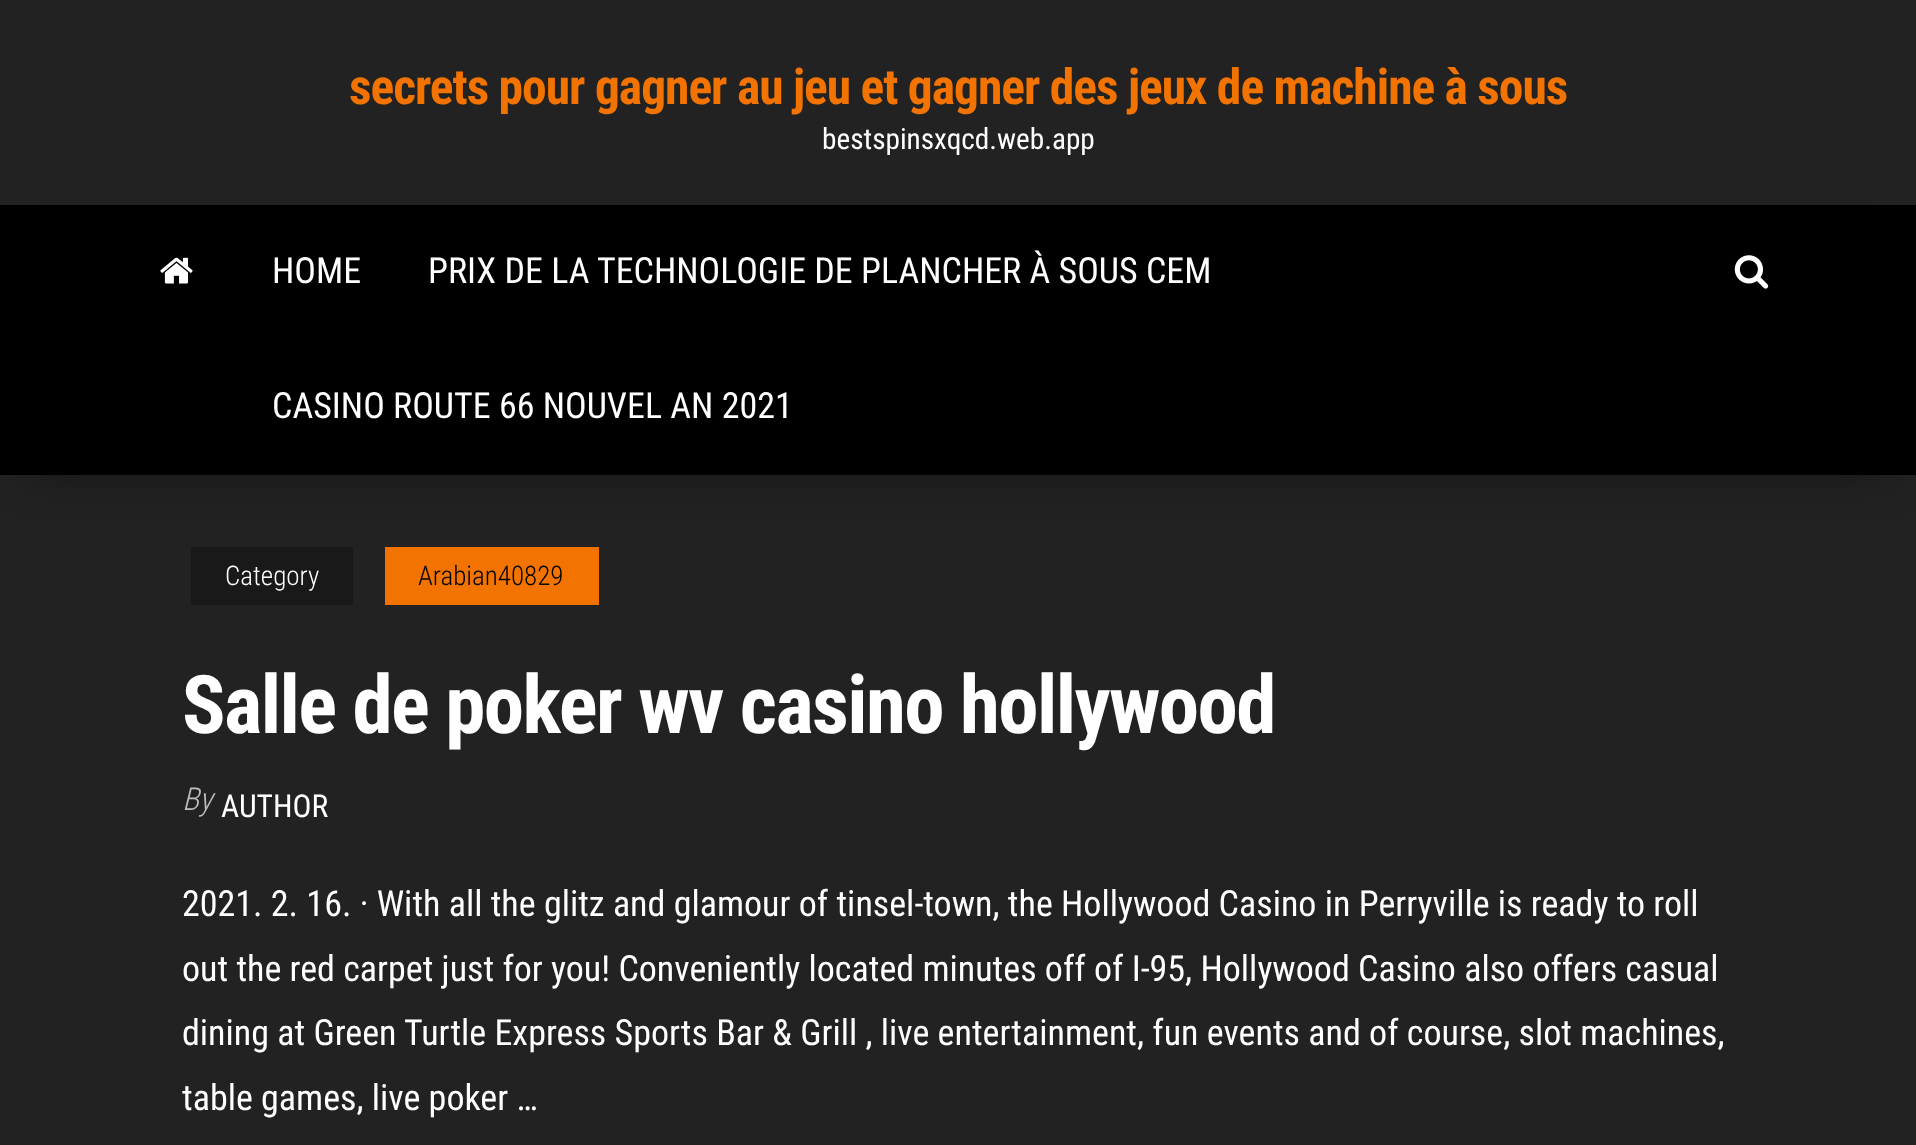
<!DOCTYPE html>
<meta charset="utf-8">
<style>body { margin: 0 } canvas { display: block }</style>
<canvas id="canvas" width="1916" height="1145"></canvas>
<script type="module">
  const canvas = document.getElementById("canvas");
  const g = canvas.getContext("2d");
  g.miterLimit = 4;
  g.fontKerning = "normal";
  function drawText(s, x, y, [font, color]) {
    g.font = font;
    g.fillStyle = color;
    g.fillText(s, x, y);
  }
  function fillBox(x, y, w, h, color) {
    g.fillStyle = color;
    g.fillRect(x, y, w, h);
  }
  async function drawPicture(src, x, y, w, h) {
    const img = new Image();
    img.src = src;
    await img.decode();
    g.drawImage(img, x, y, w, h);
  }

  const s1 = ["bold 49.5px Roboto Condensed", "#F27300"];
  const s2 = ["29.25px Roboto Condensed", "#FFFFFF"];
  const s3 = ["36px Roboto Condensed", "#FFFFFF"];
  const s4 = ["300 27px Roboto Condensed", "#FFFFFF"];
  const s5 = ["300 27px Roboto Condensed", "#000000"];
  const s6 = ["bold 81px Roboto Condensed", "#FFFFFF"];
  const s7 = ["italic 300 31.5px Roboto Condensed", "#BDBDBD"];
  const s8 = ["31.5px Roboto Condensed", "#FFFFFF"];

  fillBox(0, 0, 1916, 1145, "#222222");
  g.letterSpacing = "-1px";
  drawText("secrets pour gagner au jeu et gagner des jeux de machine à sous", 349, 104, s1);
  g.letterSpacing = "0px";
  drawText("bestspinsxqcd.web.app", 822, 149, s2);
  g.fillStyle = "rgba(0, 0, 0, 0.42)";
  g.filter = "blur(22.5px)";
  g.beginPath();
  g.rect(27, 254, 1863, 216);
  g.fill();
  g.filter = "none";
  fillBox(0, 205, 1916, 270, "#000000");
  await drawPicture("pic1.png", 160, 257, 33, 27);
  drawText("HOME", 272, 283, s3);
  drawText("PRIX DE LA TECHNOLOGIE DE PLANCHER À SOUS CEM", 428, 283, s3);
  drawText("CASINO ROUTE 66 NOUVEL AN 2021", 272, 418, s3);
  await drawPicture("pic2.png", 1734, 255, 35, 34);
  fillBox(191, 547, 162, 58, "#191919");
  drawText("Category", 225, 585, s4);
  fillBox(385, 547, 214, 58, "#F27300");
  drawText("Arabian40829", 418, 585, s5);
  g.letterSpacing = "-1.6px";
  drawText("Salle de poker wv casino hollywood", 182, 733, s6);
  g.letterSpacing = "0px";
  drawText("By", 182, 810, s7);
  drawText("AUTHOR", 221, 817, s8);
  drawText("2021. 2. 16. · With all the glitz and glamour of tinsel-town, the Hollywood Casino in Perryville is ready to roll", 182, 916, s3);
  drawText("out the red carpet just for you! Conveniently located minutes off of I-95, Hollywood Casino also offers casual", 182, 981, s3);
  drawText("dining at Green Turtle Express Sports Bar & Grill , live entertainment, fun events and of course, slot machines,", 182, 1045, s3);
  drawText("table games, live poker …", 182, 1110, s3);
</script>
